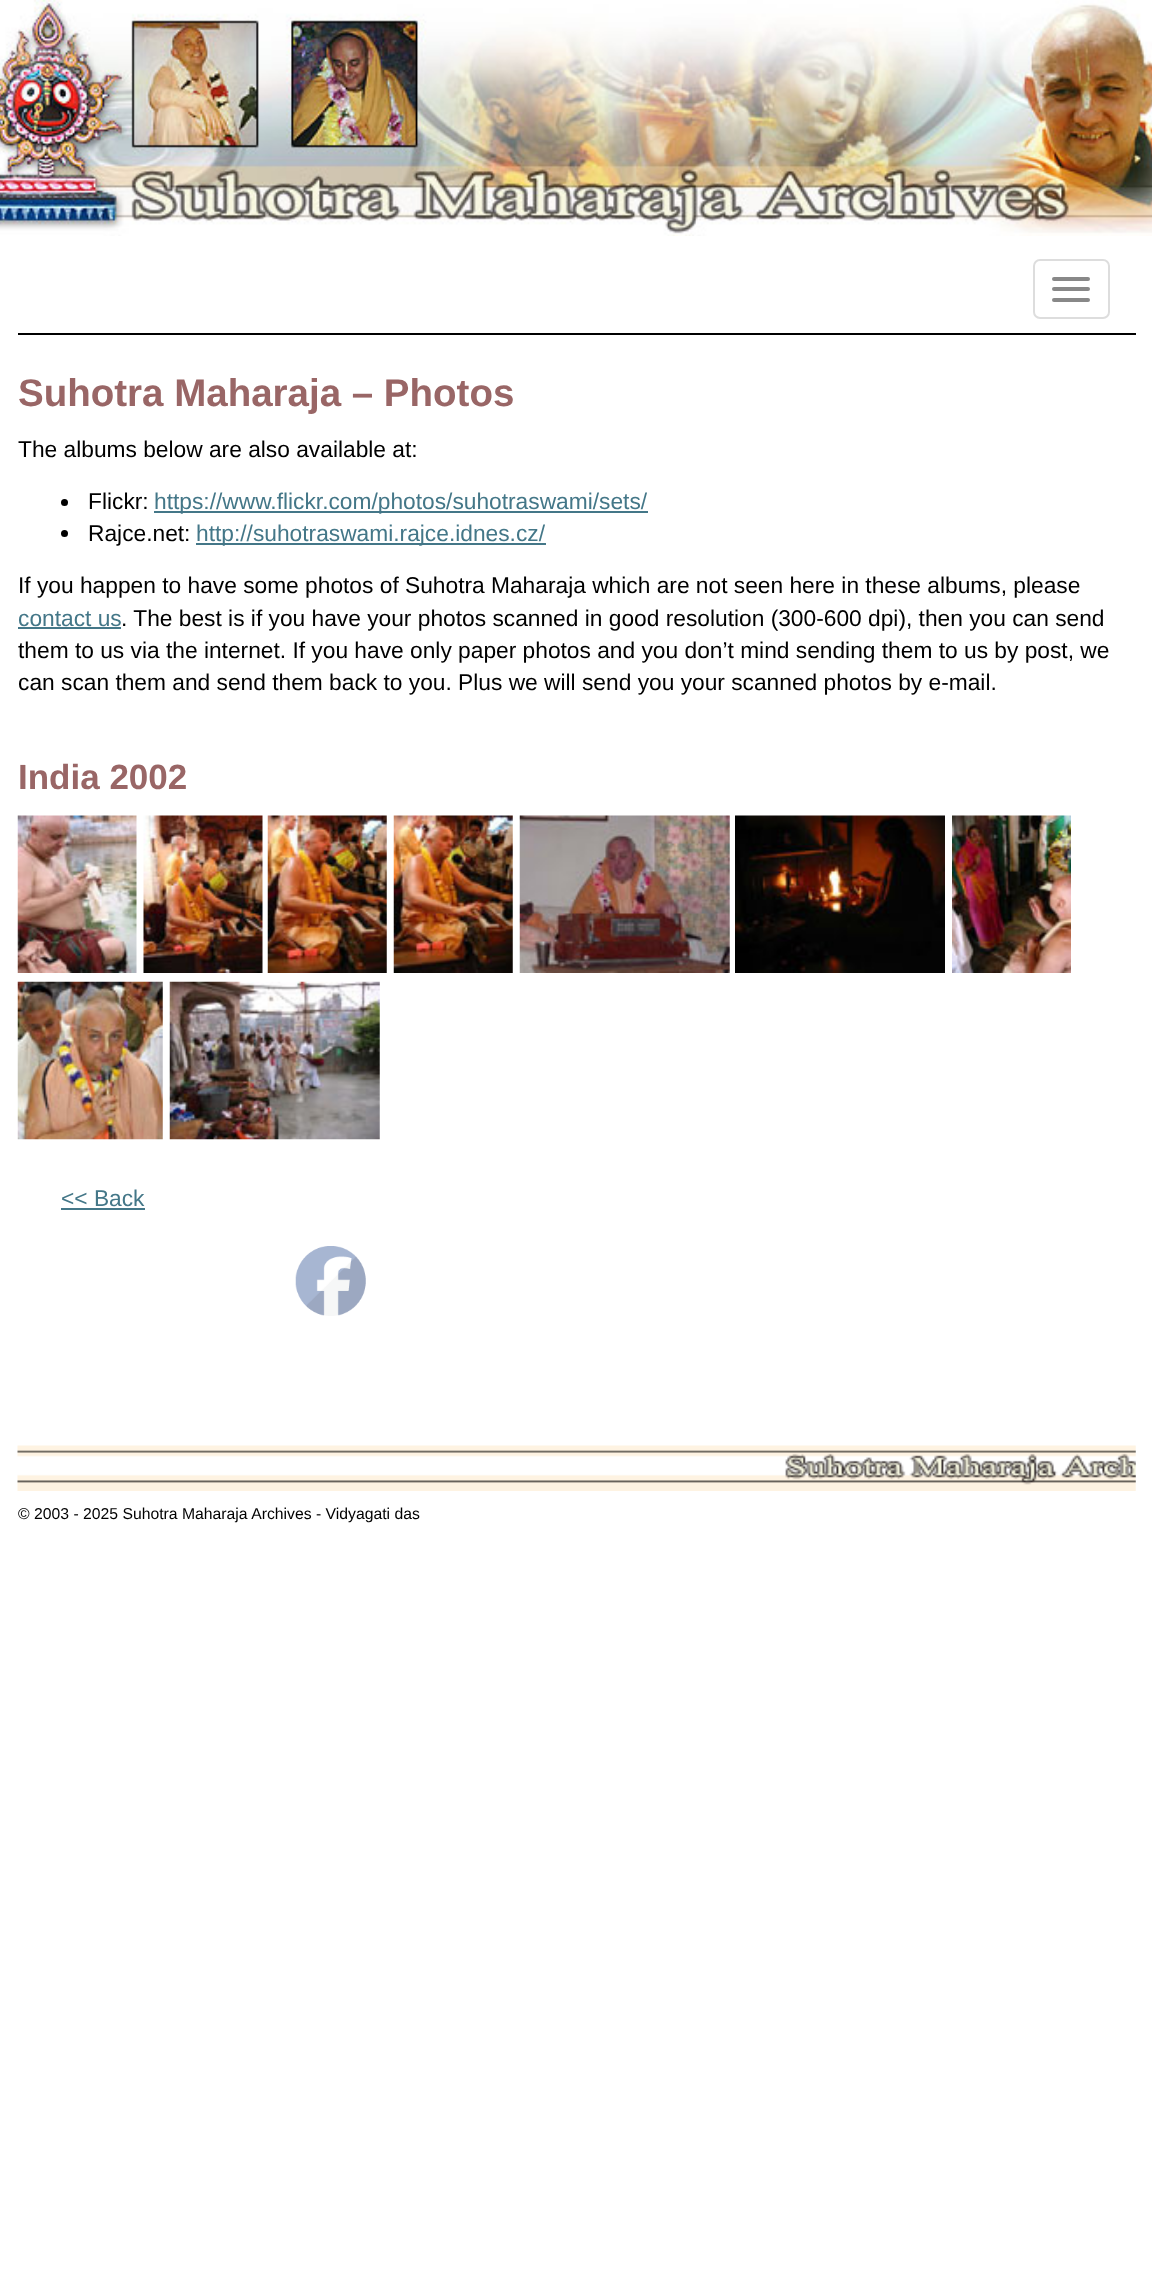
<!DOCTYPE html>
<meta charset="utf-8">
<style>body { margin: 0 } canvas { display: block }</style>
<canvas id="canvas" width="1152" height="2273"></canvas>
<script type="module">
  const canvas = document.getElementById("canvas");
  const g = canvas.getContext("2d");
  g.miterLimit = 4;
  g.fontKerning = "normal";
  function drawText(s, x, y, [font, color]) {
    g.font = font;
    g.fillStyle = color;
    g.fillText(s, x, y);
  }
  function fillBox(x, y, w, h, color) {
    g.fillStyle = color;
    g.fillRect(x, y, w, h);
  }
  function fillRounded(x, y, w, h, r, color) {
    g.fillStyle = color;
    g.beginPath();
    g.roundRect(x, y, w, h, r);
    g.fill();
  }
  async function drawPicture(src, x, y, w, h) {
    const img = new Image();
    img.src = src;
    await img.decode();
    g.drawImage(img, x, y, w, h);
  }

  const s1 = ["bold 38.5px Liberation Sans", "#996666"];
  const s2 = ["22.75px Liberation Sans", "#000000"];
  const s3 = ["22.75px Liberation Sans", "#447788"];
  const s4 = ["bold 35px Liberation Sans", "#996666"];
  const s5 = ["15.75px Liberation Sans", "#000000"];

  fillBox(0, 0, 1152, 2273, "#FFFFFF");
  await drawPicture("pic1.png", 0, 0, 1152, 236);
  fillBox(18, 333, 1118, 2, "#000000");
  g.beginPath();
  g.roundRect(1034, 260, 75, 58, 6);
  g.strokeStyle = "#DDDDDD";
  g.lineWidth = 2;
  g.stroke();
  fillRounded(1052, 277, 38, 4, 2, "#888888");
  fillRounded(1052, 287, 38, 4, 2, "#888888");
  fillRounded(1052, 298, 38, 4, 2, "#888888");
  drawText("Suhotra Maharaja – Photos", 18, 406, s1);
  drawText("The albums below are also available at:", 18, 457, s2);
  g.beginPath();
  g.arc(64.5, 502.5, 3.5, 0, Math.PI * 2);
  g.fill();
  drawText("Flickr:", 88, 509, s2);
  fillBox(154, 511, 494, 2, "#447788");
  drawText("https://www.flickr.com/photos/suhotraswami/sets/", 154, 509, s3);
  g.fillStyle = "#000000";
  g.beginPath();
  g.arc(64.5, 533.5, 3.5, 0, Math.PI * 2);
  g.fill();
  drawText("Rajce.net:", 88, 541, s2);
  fillBox(196, 543, 350, 2, "#447788");
  drawText("http://suhotraswami.rajce.idnes.cz/", 196, 541, s3);
  drawText("If you happen to have some photos of Suhotra Maharaja which are not seen here in these albums, please", 18, 593, s2);
  drawText("contact us", 18, 626, s3);
  fillBox(18, 627, 103, 2, "#447788");
  drawText(". The best is if you have your photos scanned in good resolution (300-600 dpi), then you can send", 121, 626, s2);
  drawText("them to us via the internet. If you have only paper photos and you don’t mind sending them to us by post, we", 18, 658, s2);
  drawText("can scan them and send them back to you. Plus we will send you your scanned photos by e-mail.", 18, 690, s2);
  drawText("India 2002", 18, 789, s4);
  await drawPicture("pic2.png", 17, 815, 120, 158);
  await drawPicture("pic3.png", 143, 815, 120, 158);
  await drawPicture("pic4.png", 267, 815, 120, 158);
  await drawPicture("pic5.png", 393, 815, 120, 158);
  await drawPicture("pic6.png", 519, 815, 211, 158);
  await drawPicture("pic7.png", 735, 815, 210, 158);
  await drawPicture("pic8.png", 952, 815, 119, 158);
  await drawPicture("pic9.png", 17, 981, 146, 159);
  await drawPicture("pic10.png", 169, 981, 211, 159);
  drawText("<< Back", 61, 1206, s3);
  fillBox(61, 1208, 84, 2, "#447788");
  await drawPicture("pic11.png", 295, 1246, 71, 70);
  await drawPicture("pic12.png", 17, 1445, 1119, 46);
  drawText("© 2003 - 2025 Suhotra Maharaja Archives - Vidyagati das", 18, 1519, s5);
</script>
